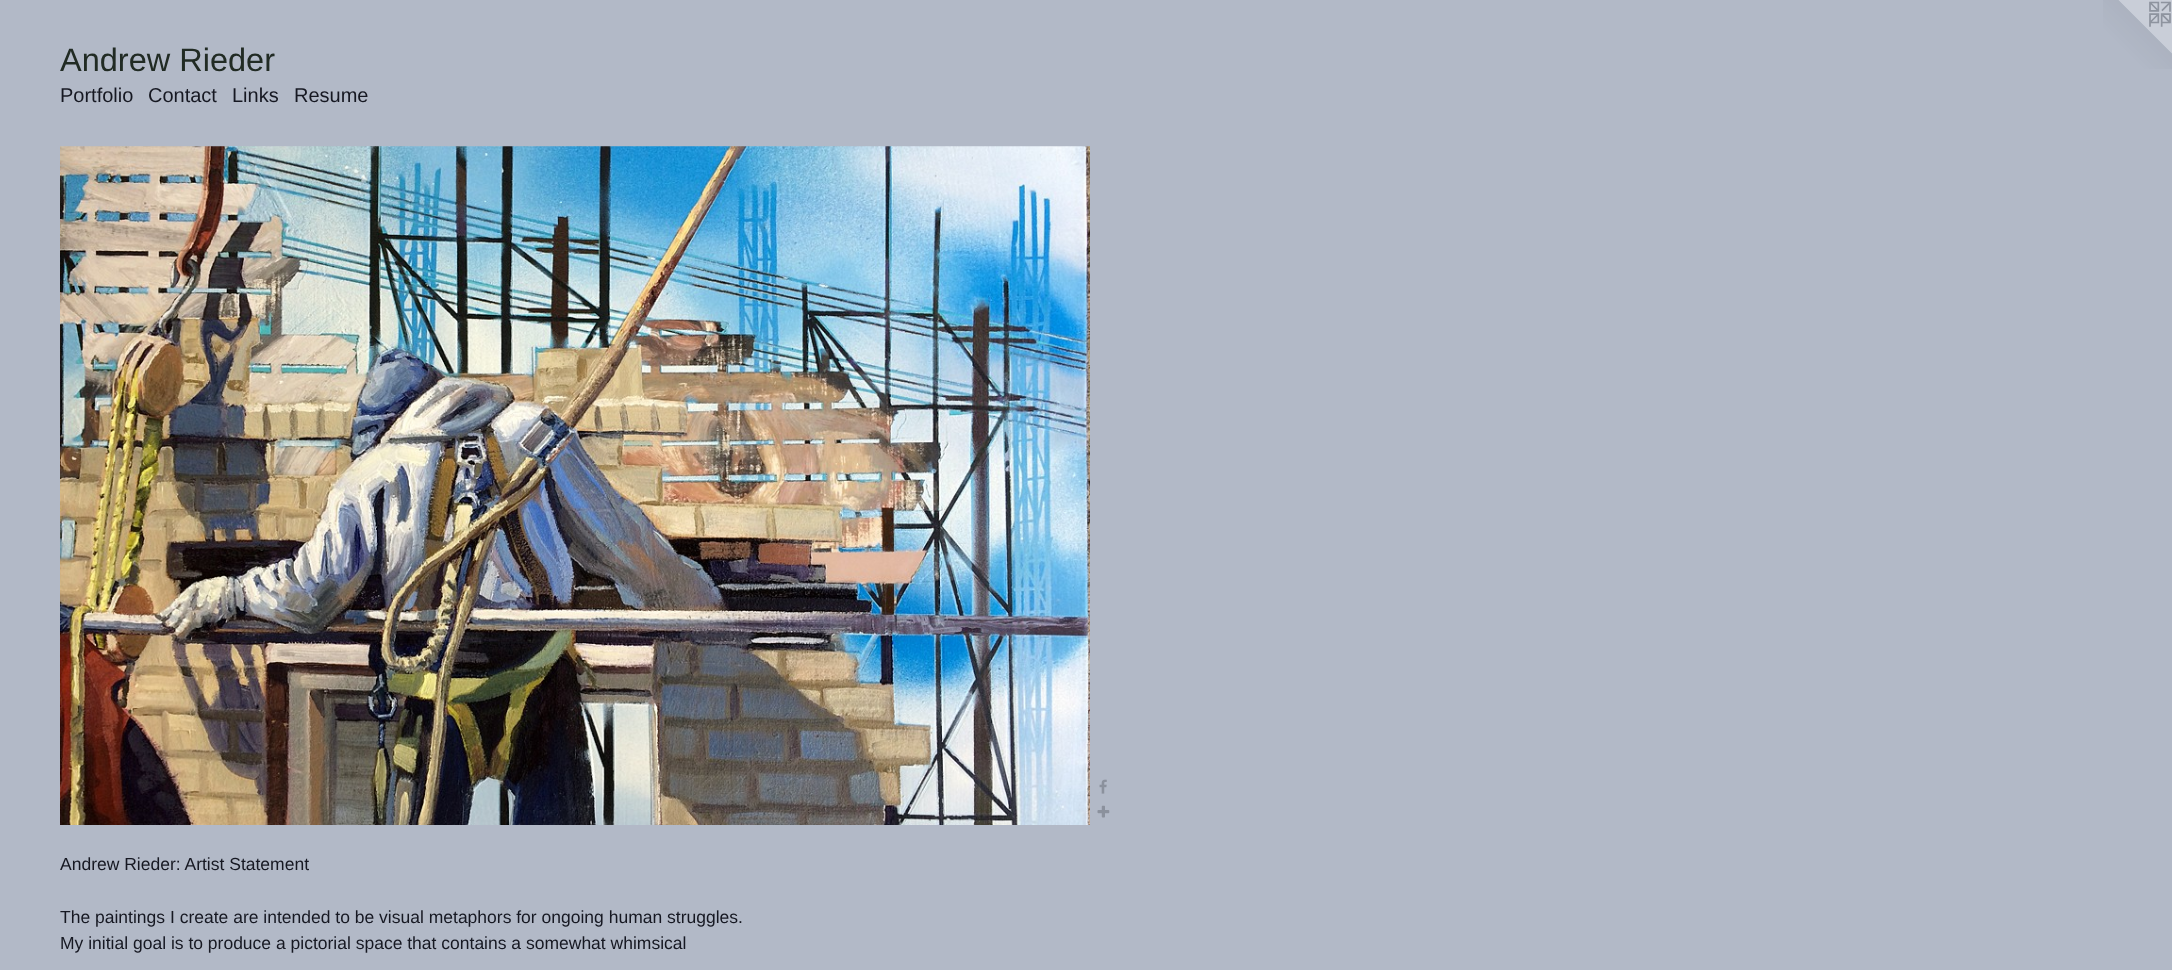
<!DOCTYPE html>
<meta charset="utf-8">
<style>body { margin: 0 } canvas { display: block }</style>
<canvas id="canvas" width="2172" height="970"></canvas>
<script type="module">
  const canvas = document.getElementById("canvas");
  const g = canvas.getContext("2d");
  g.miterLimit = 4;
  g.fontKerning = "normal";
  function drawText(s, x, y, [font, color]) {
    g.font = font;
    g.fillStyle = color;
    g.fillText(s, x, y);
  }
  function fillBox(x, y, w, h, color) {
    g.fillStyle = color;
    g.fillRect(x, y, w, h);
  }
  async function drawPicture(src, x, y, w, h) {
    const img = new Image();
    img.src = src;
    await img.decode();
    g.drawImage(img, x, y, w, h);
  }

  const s1 = ["32.5px Liberation Sans", "#212B24"];
  const s2 = ["20px Liberation Sans", "#161822"];
  const s3 = ["17.5px Liberation Sans", "#161822"];

  fillBox(0, 0, 2172, 970, "#B2B9C7");
  drawText("Andrew Rieder", 60, 71, s1);
  await drawPicture("pic1.png", 2103, 0, 69, 69);
  drawText("Portfolio", 60, 102, s2);
  drawText("Contact", 148, 102, s2);
  drawText("Links", 232, 102, s2);
  drawText("Resume", 294, 102, s2);
  await drawPicture("pic2.png", 60, 146, 1030, 679);
  await drawPicture("pic3.png", 1099, 779, 8, 15);
  await drawPicture("pic4.png", 1097, 805, 13, 13);
  drawText("Andrew Rieder: Artist Statement", 60, 870, s3);
  drawText("The paintings I create are intended to be visual metaphors for ongoing human struggles.", 60, 923, s3);
  drawText("My initial goal is to produce a pictorial space that contains a somewhat whimsical", 60, 949, s3);
</script>
